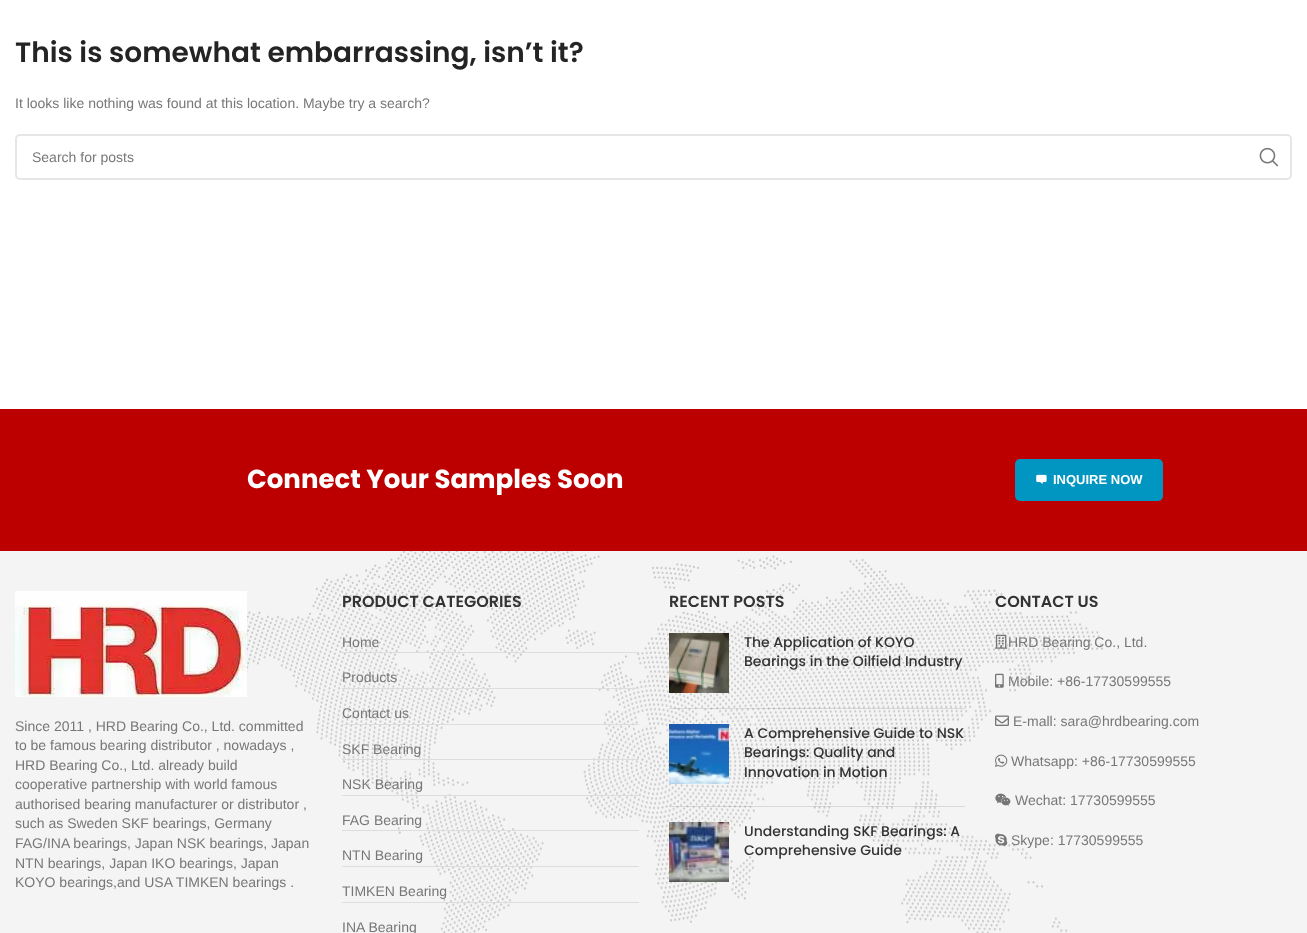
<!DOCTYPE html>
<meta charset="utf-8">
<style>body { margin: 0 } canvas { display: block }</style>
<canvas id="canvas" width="1307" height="933"></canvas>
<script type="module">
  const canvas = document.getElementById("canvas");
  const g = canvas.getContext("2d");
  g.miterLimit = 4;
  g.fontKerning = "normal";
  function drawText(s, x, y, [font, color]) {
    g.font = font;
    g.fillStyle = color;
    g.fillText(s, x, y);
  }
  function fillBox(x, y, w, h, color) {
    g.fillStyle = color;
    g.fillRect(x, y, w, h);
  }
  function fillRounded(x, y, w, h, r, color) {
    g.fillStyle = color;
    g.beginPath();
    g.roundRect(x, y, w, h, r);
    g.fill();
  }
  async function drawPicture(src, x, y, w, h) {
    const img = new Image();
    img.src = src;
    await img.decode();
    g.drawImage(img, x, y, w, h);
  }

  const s1 = ["600 28px Poppins", "#242424"];
  const s2 = ["14px Liberation Sans", "#777777"];
  const s3 = ["bold 26px Poppins", "#FFFFFF"];
  const s4 = ["bold 13px Liberation Sans", "#FFFFFF"];
  const s5 = ["600 16px Poppins", "#333333"];
  const s6 = ["500 14px Poppins", "#333333"];

  fillBox(0, 0, 1307, 933, "#FFFFFF");
  drawText("This is somewhat embarrassing, isn’t it?", 15, 62, s1);
  drawText("It looks like nothing was found at this location. Maybe try a search?", 15, 108, s2);
  g.beginPath();
  g.roundRect(16, 135, 1275, 44, 4);
  g.strokeStyle = "#E6E6E6";
  g.lineWidth = 2;
  g.stroke();
  drawText("Search for posts", 32, 162, s2);
  await drawPicture("pic1.png", 1259, 147, 20, 20);
  fillBox(0, 409, 1307, 142, "#BC0000");
  drawText("Connect Your Samples Soon", 247, 488, s3);
  fillRounded(1015, 459, 148, 42, 5, "#0195C1");
  await drawPicture("pic2.png", 1036, 474, 11, 10);
  drawText("INQUIRE NOW", 1053, 484, s4);
  fillBox(0, 551, 1307, 382, "#F4F4F4");
  await drawPicture("pic3.png", 247, 551, 856, 382);
  await drawPicture("pic4.png", 15, 591, 232, 106);
  drawText("Since 2011 , HRD Bearing Co., Ltd. committed", 15, 731, s2);
  drawText("to be famous bearing distributor , nowadays ,", 15, 750, s2);
  drawText("HRD Bearing Co., Ltd. already build", 15, 770, s2);
  drawText("cooperative partnership with world famous", 15, 789, s2);
  drawText("authorised bearing manufacturer or distributor ,", 15, 809, s2);
  drawText("such as Sweden SKF bearings, Germany", 15, 828, s2);
  drawText("FAG/INA bearings, Japan NSK bearings, Japan", 15, 848, s2);
  drawText("NTN bearings, Japan IKO bearings, Japan", 15, 868, s2);
  drawText("KOYO bearings,and USA TIMKEN bearings .", 15, 887, s2);
  drawText("PRODUCT CATEGORIES", 342, 607, s5);
  fillBox(342, 652, 297, 1, "#DDDDDD");
  drawText("Home", 342, 647, s2);
  fillBox(342, 688, 297, 1, "#DDDDDD");
  drawText("Products", 342, 682, s2);
  fillBox(342, 724, 297, 1, "#DDDDDD");
  drawText("Contact us", 342, 718, s2);
  fillBox(342, 759, 297, 1, "#DDDDDD");
  drawText("SKF Bearing", 342, 754, s2);
  fillBox(342, 795, 297, 1, "#DDDDDD");
  drawText("NSK Bearing", 342, 789, s2);
  fillBox(342, 830, 297, 1, "#DDDDDD");
  drawText("FAG Bearing", 342, 825, s2);
  fillBox(342, 866, 297, 1, "#DDDDDD");
  drawText("NTN Bearing", 342, 860, s2);
  fillBox(342, 902, 297, 1, "#DDDDDD");
  drawText("TIMKEN Bearing", 342, 896, s2);
  drawText("INA Bearing", 342, 932, s2);
  drawText("RECENT POSTS", 669, 607, s5);
  fillBox(669, 708, 296, 1, "rgba(0, 0, 0, 0.11)");
  await drawPicture("pic5.png", 669, 633, 60, 60);
  drawText("The Application of KOYO", 744, 647, s6);
  drawText("Bearings in the Oilfield Industry", 744, 666, s6);
  fillBox(669, 806, 296, 1, "rgba(0, 0, 0, 0.11)");
  await drawPicture("pic6.png", 669, 724, 60, 60);
  drawText("A Comprehensive Guide to NSK", 744, 738, s6);
  drawText("Bearings: Quality and", 744, 757, s6);
  drawText("Innovation in Motion", 744, 777, s6);
  await drawPicture("pic7.png", 669, 822, 60, 60);
  drawText("Understanding SKF Bearings: A", 744, 836, s6);
  drawText("Comprehensive Guide", 744, 855, s6);
  drawText("CONTACT US", 995, 607, s5);
  await drawPicture("pic8.png", 995, 634, 13, 15);
  drawText("HRD Bearing Co., Ltd.", 1008, 647, s2);
  await drawPicture("pic9.png", 995, 673, 9, 15);
  drawText("Mobile: +86-17730599555", 1008, 686, s2);
  await drawPicture("pic10.png", 995, 715, 14, 11);
  drawText("E-mall: sara@hrdbearing.com", 1013, 726, s2);
  await drawPicture("pic11.png", 995, 754, 13, 13);
  drawText("Whatsapp: +86-17730599555", 1011, 766, s2);
  await drawPicture("pic12.png", 995, 793, 16, 13);
  drawText("Wechat: 17730599555", 1015, 805, s2);
  await drawPicture("pic13.png", 995, 833, 13, 13);
  drawText("Skype: 17730599555", 1011, 845, s2);
</script>
